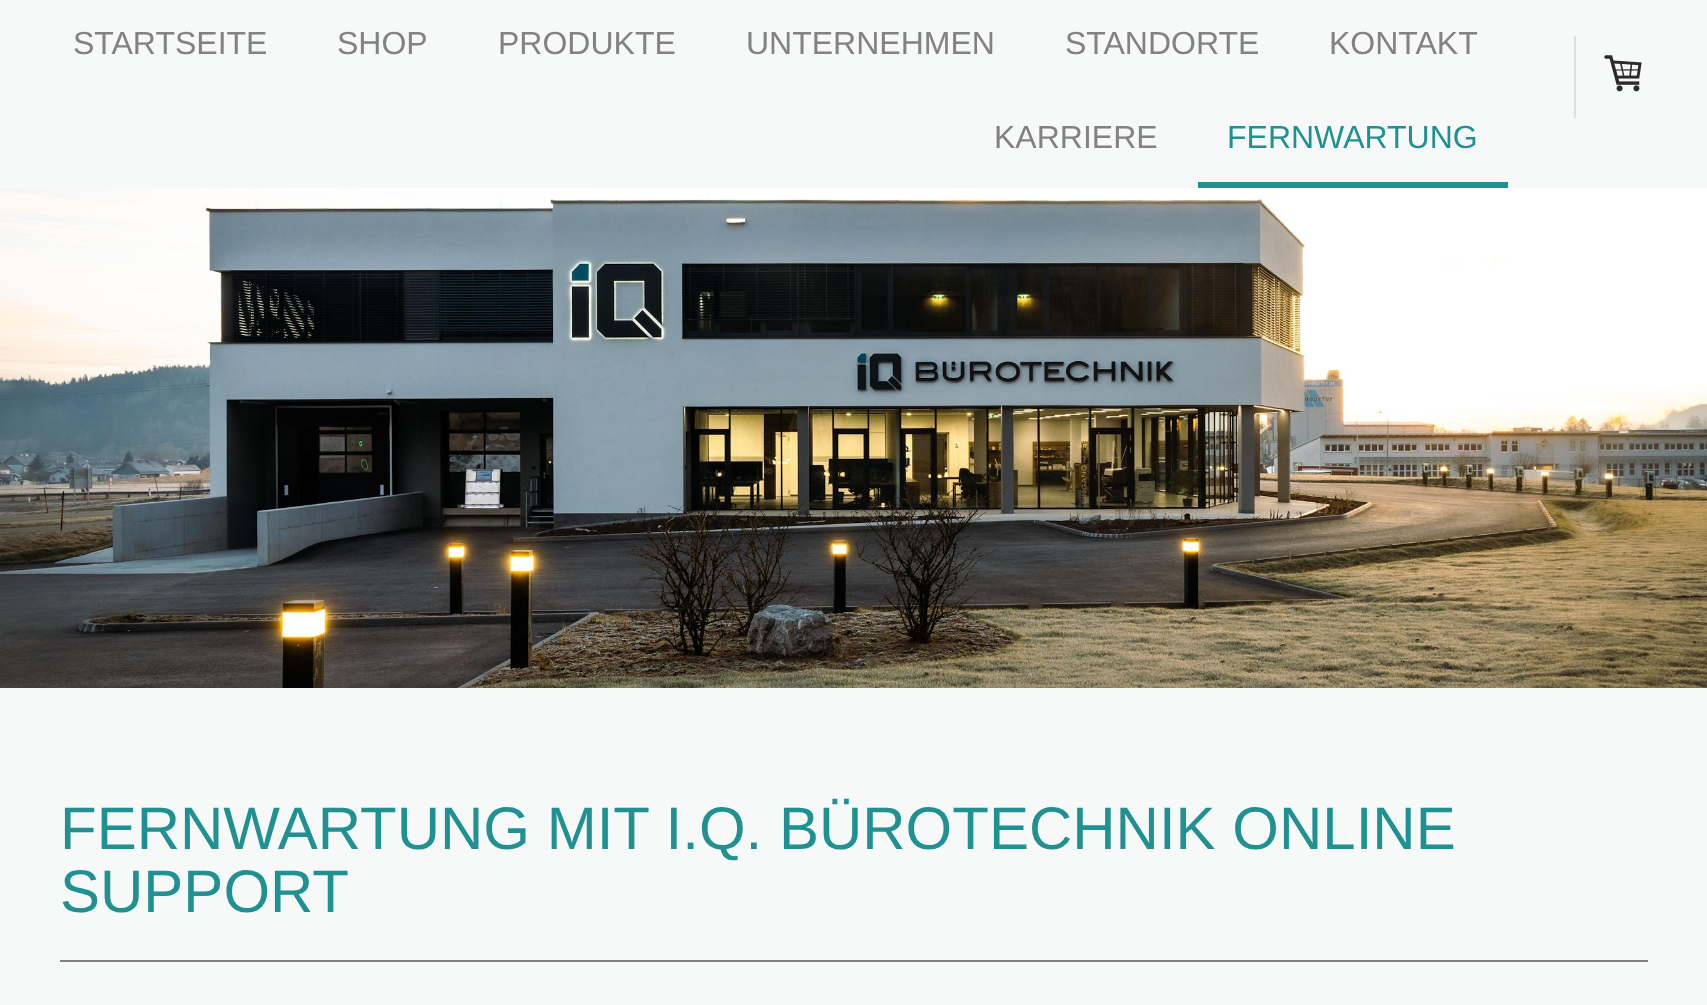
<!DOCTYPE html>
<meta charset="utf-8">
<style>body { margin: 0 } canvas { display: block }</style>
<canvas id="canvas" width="1707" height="1005"></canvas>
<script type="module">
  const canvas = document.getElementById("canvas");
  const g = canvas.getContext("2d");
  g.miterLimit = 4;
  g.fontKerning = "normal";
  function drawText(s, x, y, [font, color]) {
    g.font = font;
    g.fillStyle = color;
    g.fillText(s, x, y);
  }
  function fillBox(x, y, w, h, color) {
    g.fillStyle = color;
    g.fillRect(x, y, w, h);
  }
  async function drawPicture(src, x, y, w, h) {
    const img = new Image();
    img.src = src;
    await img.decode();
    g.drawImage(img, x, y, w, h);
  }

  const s1 = ["32px Liberation Sans", "#828282"];
  const s2 = ["32px Liberation Sans", "#1F9192"];
  const s3 = ["60px Liberation Sans", "#1F9192"];

  fillBox(0, 0, 1707, 1005, "#F7F8F8");
  drawText("STARTSEITE", 73, 54, s1);
  drawText("SHOP", 337, 54, s1);
  drawText("PRODUKTE", 498, 54, s1);
  drawText("UNTERNEHMEN", 746, 54, s1);
  drawText("STANDORTE", 1065, 54, s1);
  drawText("KONTAKT", 1329, 54, s1);
  drawText("KARRIERE", 994, 148, s1);
  fillBox(1198, 182, 310, 6, "#1F9192");
  drawText("FERNWARTUNG", 1227, 148, s2);
  fillBox(1574, 36, 2, 82, "#DEDFDF");
  await drawPicture("pic1.png", 1604, 55, 38, 37);
  await drawPicture("pic2.png", 0, 188, 1707, 500);
  drawText("FERNWARTUNG MIT I.Q. BÜROTECHNIK ONLINE", 60, 849, s3);
  drawText("SUPPORT", 60, 912, s3);
  fillBox(60, 960, 1588, 2, "#828282");
</script>
